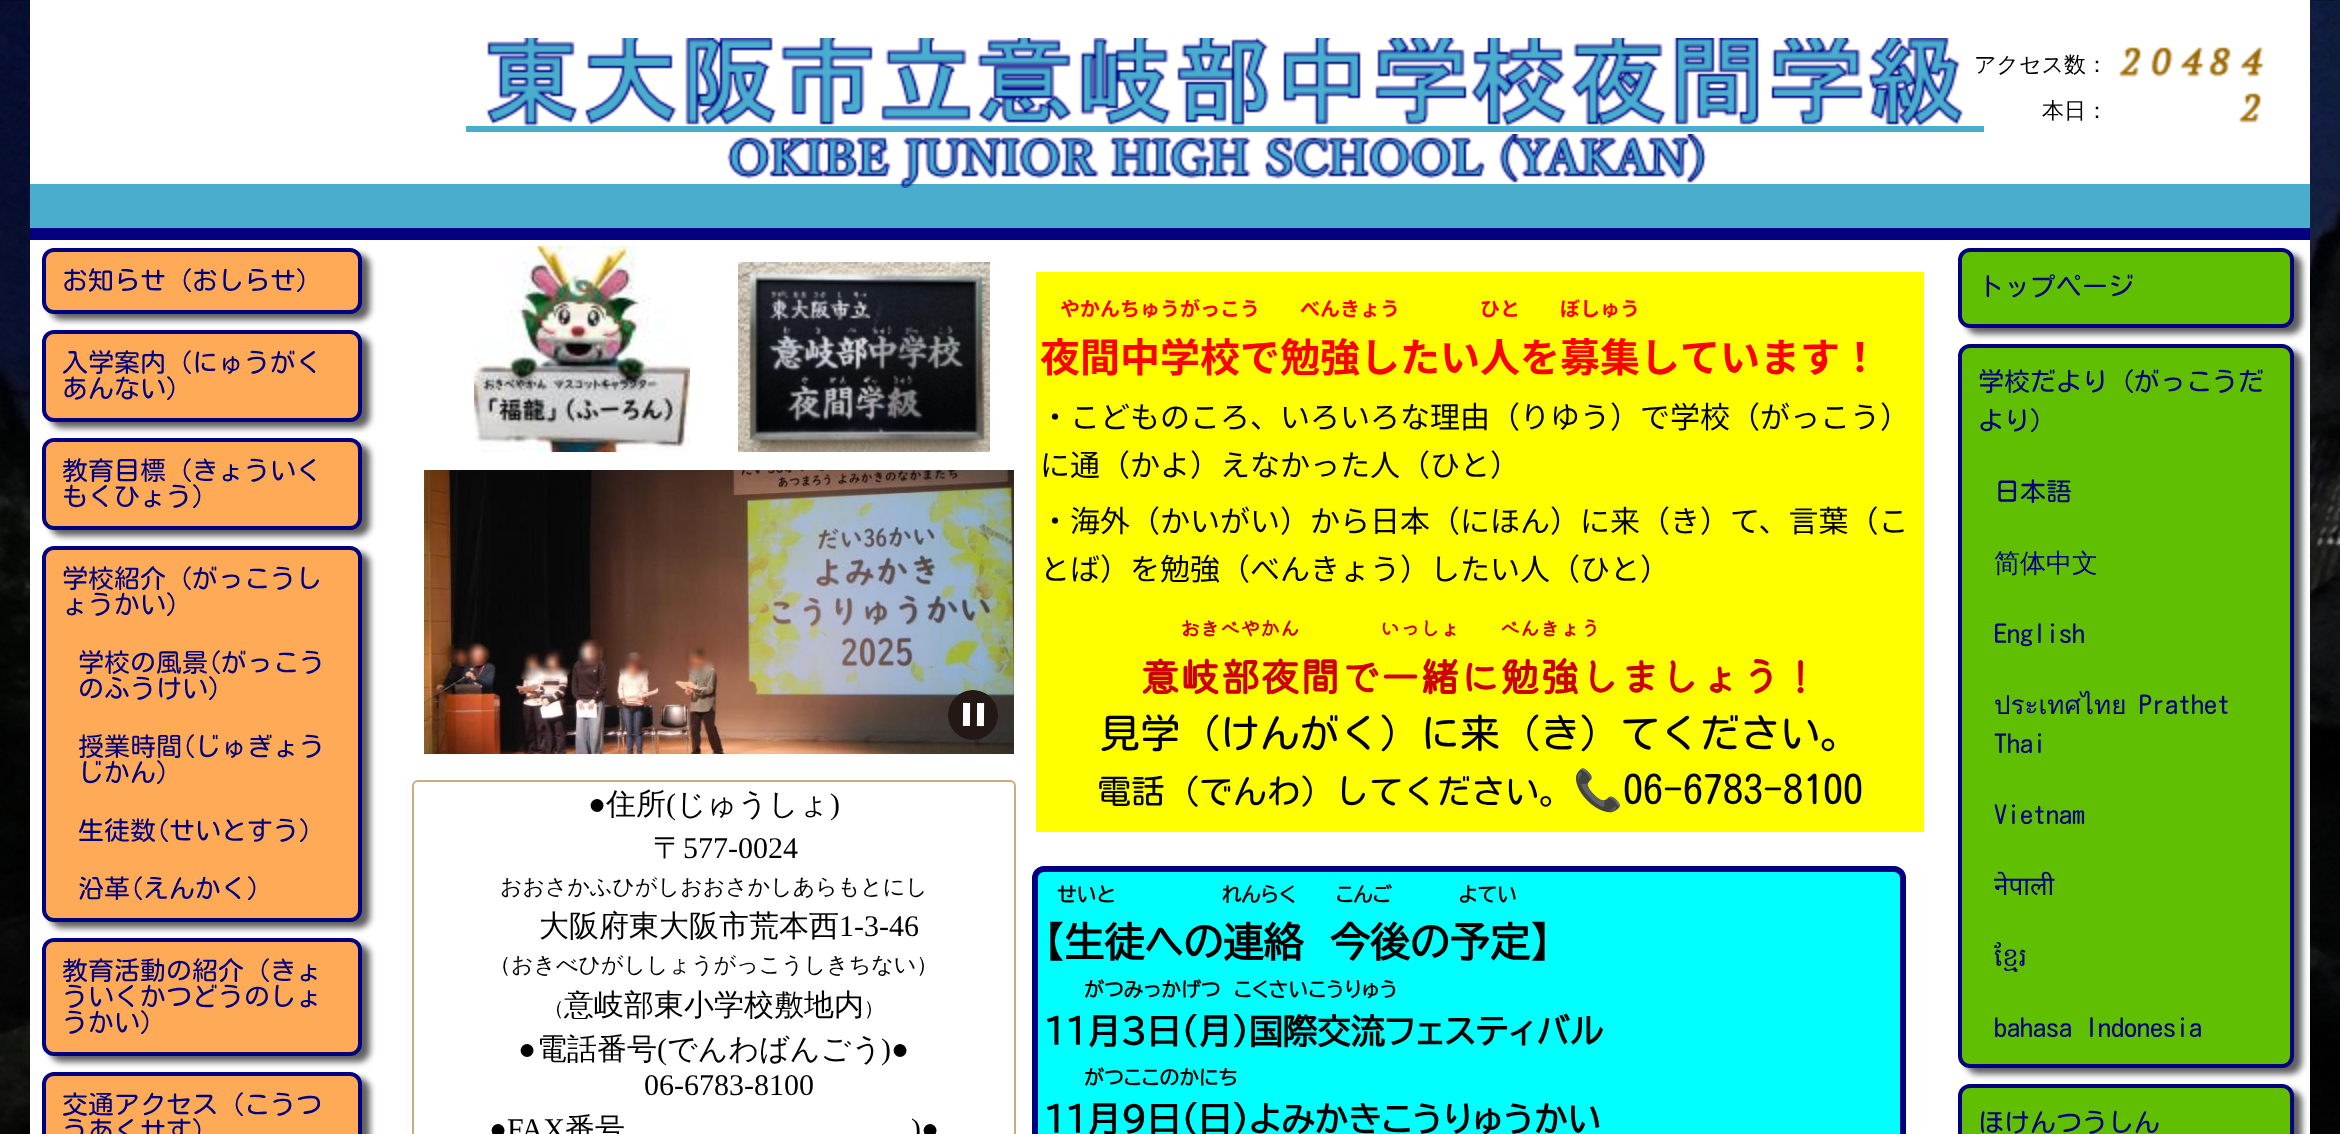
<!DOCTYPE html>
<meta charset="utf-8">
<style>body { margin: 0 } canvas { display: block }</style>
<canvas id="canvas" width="2340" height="1134"></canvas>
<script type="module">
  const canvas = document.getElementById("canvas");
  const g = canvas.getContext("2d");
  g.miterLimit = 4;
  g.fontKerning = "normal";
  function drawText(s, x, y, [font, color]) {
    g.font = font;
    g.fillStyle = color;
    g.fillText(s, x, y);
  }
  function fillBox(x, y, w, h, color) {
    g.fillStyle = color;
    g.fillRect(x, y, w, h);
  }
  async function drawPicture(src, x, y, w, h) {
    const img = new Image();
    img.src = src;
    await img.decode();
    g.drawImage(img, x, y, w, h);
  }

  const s1 = ["500 22px WenQuanYi Zen Hei", "#000000"];
  const s2 = ["26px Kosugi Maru", "#000080"];
  const s3 = ["bold 20px Noto Sans JP", "#FF0000"];
  const s4 = ["bold 40px Noto Sans JP", "#FF0000"];
  const s5 = ["30px Noto Sans JP", "#000000"];
  const s6 = ["bold 20px Kiwi Maru", "#CC0000"];
  const s7 = ["bold 40px Kiwi Maru", "#CC0000"];
  const s8 = ["40px Kosugi Maru", "#000000"];
  const s9 = ["34px Kosugi Maru", "#000000"];
  const s10 = ["40px Noto Color Emoji", "#000000"];
  const s11 = ["30px Liberation Serif", "#000000"];
  const s12 = ["500 30px WenQuanYi Zen Hei", "#000000"];
  const s13 = ["500 20px WenQuanYi Zen Hei", "#000000"];
  const s14 = ["bold 20px BIZ UDPGothic", "#000000"];
  const s15 = ["bold 40px BIZ UDPGothic", "#000000"];
  const s16 = ["bold 34px BIZ UDPGothic", "#000000"];
  const s17 = ["500 26px WenQuanYi Zen Hei", "#000080"];
  const s18 = ["26px Loma", "#000080"];
  const s19 = ["26px Noto Sans", "#000080"];
  const s20 = ["26px Hanuman", "#000080"];

  fillBox(0, 0, 2340, 1134, "#FFFFFF");
  await drawPicture("pic1.png", 0, 0, 2340, 1134);
  fillBox(30, 0, 2280, 184, "#FFFFFF");
  await drawPicture("pic2.png", 485, 38, 1478, 88);
  fillBox(466, 126, 1518, 6, "#4AADCE");
  drawText("アクセス数：", 1974, 72, s1);
  await drawPicture("pic3.png", 2119, 47, 23, 30);
  await drawPicture("pic4.png", 2151, 47, 22, 30);
  await drawPicture("pic5.png", 2179, 47, 26, 30);
  await drawPicture("pic6.png", 2209, 47, 22, 30);
  await drawPicture("pic5.png", 2239, 47, 26, 30);
  drawText("本日：", 2042, 118, s1);
  await drawPicture("pic3.png", 2239, 93, 23, 30);
  fillBox(30, 184, 2280, 44, "#4AADCE");
  await drawPicture("pic7.png", 727, 134, 980, 54);
  fillBox(30, 228, 2280, 12, "#000080");
  fillBox(30, 240, 2280, 894, "#FFFFFF");
  g.fillStyle = "#606060";
  g.filter = "blur(3px)";
  g.beginPath();
  g.roundRect(50, 254, 320, 66, 12);
  g.fill();
  g.filter = "none";
  g.fillStyle = "#FFAA56";
  g.beginPath();
  g.roundRect(44, 250, 316, 62, 10);
  g.fill();
  g.strokeStyle = "#000080";
  g.lineWidth = 4;
  g.stroke();
  drawText("お知らせ（おしらせ）", 62, 290, s2);
  g.fillStyle = "#606060";
  g.filter = "blur(3px)";
  g.beginPath();
  g.roundRect(50, 336, 320, 92, 12);
  g.fill();
  g.filter = "none";
  g.fillStyle = "#FFAA56";
  g.beginPath();
  g.roundRect(44, 332, 316, 88, 10);
  g.fill();
  g.stroke();
  drawText("入学案内（にゅうがく", 62, 372, s2);
  drawText("あんない）", 62, 398, s2);
  g.fillStyle = "#606060";
  g.filter = "blur(3px)";
  g.beginPath();
  g.roundRect(50, 444, 320, 92, 12);
  g.fill();
  g.filter = "none";
  g.fillStyle = "#FFAA56";
  g.beginPath();
  g.roundRect(44, 440, 316, 88, 10);
  g.fill();
  g.stroke();
  drawText("教育目標（きょういく", 62, 480, s2);
  drawText("もくひょう）", 62, 506, s2);
  g.fillStyle = "#606060";
  g.filter = "blur(3px)";
  g.beginPath();
  g.roundRect(50, 552, 320, 376, 12);
  g.fill();
  g.filter = "none";
  g.fillStyle = "#FFAA56";
  g.beginPath();
  g.roundRect(44, 548, 316, 372, 10);
  g.fill();
  g.stroke();
  drawText("学校紹介（がっこうし", 62, 588, s2);
  drawText("ょうかい）", 62, 614, s2);
  drawText("学校の風景(がっこう", 78, 672, s2);
  drawText("のふうけい)", 78, 698, s2);
  drawText("授業時間(じゅぎょう", 78, 756, s2);
  drawText("じかん)", 78, 782, s2);
  drawText("生徒数(せいとすう)", 78, 840, s2);
  drawText("沿革(えんかく)", 78, 898, s2);
  g.fillStyle = "#606060";
  g.filter = "blur(3px)";
  g.beginPath();
  g.roundRect(50, 944, 320, 118, 12);
  g.fill();
  g.filter = "none";
  g.fillStyle = "#FFAA56";
  g.beginPath();
  g.roundRect(44, 940, 316, 114, 10);
  g.fill();
  g.stroke();
  drawText("教育活動の紹介（きょ", 62, 980, s2);
  drawText("ういくかつどうのしょ", 62, 1006, s2);
  drawText("うかい）", 62, 1032, s2);
  g.fillStyle = "#606060";
  g.filter = "blur(3px)";
  g.beginPath();
  g.roundRect(50, 1078, 320, 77, 12);
  g.fill();
  g.filter = "none";
  g.fillStyle = "#FFAA56";
  g.beginPath();
  g.roundRect(44, 1074, 316, 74, 10);
  g.fill();
  g.stroke();
  drawText("交通アクセス（こうつ", 62, 1114, s2);
  drawText("うあくせす）", 62, 1140, s2);
  await drawPicture("pic8.png", 474, 246, 216, 206);
  await drawPicture("pic9.png", 738, 262, 252, 190);
  fillBox(1036, 272, 888, 560, "#FFFF00");
  drawText("やかんちゅうがっこう　　べんきょう　　　　ひと　　ぼしゅう", 1060, 316, s3);
  drawText("夜間中学校で勉強したい人を募集しています！", 1040, 372, s4);
  drawText("・こどものころ、いろいろな理由（りゆう）で学校（がっこう）", 1040, 428, s5);
  drawText("に通（かよ）えなかった人（ひと）", 1040, 476, s5);
  drawText("・海外（かいがい）から日本（にほん）に来（き）て、言葉（こ", 1040, 532, s5);
  drawText("とば）を勉強（べんきょう）したい人（ひと）", 1040, 580, s5);
  drawText("おきべやかん　　　　いっしょ　　べんきょう", 1180, 636, s6);
  drawText("意岐部夜間で一緒に勉強しましょう！", 1140, 692, s7);
  drawText("見学（けんがく）に来（き）てください。", 1100, 748, s8);
  drawText("電話（でんわ）してください。", 1097, 804, s9);
  drawText("📞", 1573, 804, s10);
  drawText("06-6783-8100", 1623, 804, s8);
  await drawPicture("pic10.png", 424, 470, 590, 284);
  await drawPicture("pic11.png", 948, 690, 50, 50);
  g.beginPath();
  g.roundRect(413, 781, 602, 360, 5);
  g.strokeStyle = "#C8AE7B";
  g.lineWidth = 2;
  g.stroke();
  drawText("●", 588, 814, s11);
  drawText("住所", 606, 814, s12);
  drawText("(", 666, 814, s11);
  drawText("じゅうしょ", 676, 814, s12);
  drawText(")", 830, 814, s11);
  drawText("〒", 653, 858, s12);
  drawText("577-0024", 683, 858, s11);
  drawText("おおさかふひがしおおさかしあらもとにし", 500, 894, s1);
  drawText("大阪府東大阪市荒本西", 539, 936, s12);
  drawText("1-3-46", 839, 936, s11);
  drawText("（おきべひがししょうがっこうしきちない）", 489, 972, s1);
  drawText("（", 544, 1015, s13);
  drawText("意岐部東小学校敷地内", 564, 1015, s12);
  drawText("）", 864, 1015, s13);
  drawText("●", 518, 1059, s11);
  drawText("電話番号", 537, 1059, s12);
  drawText("(", 657, 1059, s11);
  drawText("でんわばんごう", 667, 1059, s12);
  drawText(")●", 881, 1059, s11);
  drawText("06-6783-8100", 644, 1095, s11);
  drawText("●FAX", 489, 1139, s11);
  drawText("番号", 565, 1139, s12);
  drawText(")●", 911, 1139, s11);
  g.fillStyle = "#00FFFF";
  g.beginPath();
  g.roundRect(1035, 869, 868, 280, 9);
  g.fill();
  g.strokeStyle = "#000080";
  g.lineWidth = 6;
  g.stroke();
  drawText("せいと　　　　　　　　れんらく　　　こんご　　　　　よてい", 1057, 902, s14);
  drawText("【生徒への連絡　今後の予定】", 1044, 957, s15);
  drawText("がつみっかげつ　こくさいこうりゅう", 1084, 997, s14);
  drawText("11月3日（月）国際交流フェスティバル", 1044, 1044, s16);
  drawText("がつここのかにち", 1084, 1085, s14);
  drawText("１１月９日（日）よみかきこうりゅうかい", 1044, 1132, s16);
  g.fillStyle = "#606060";
  g.filter = "blur(3px)";
  g.beginPath();
  g.roundRect(1966, 254, 336, 80, 12);
  g.fill();
  g.filter = "none";
  g.fillStyle = "#5FBF00";
  g.beginPath();
  g.roundRect(1960, 250, 332, 76, 10);
  g.fill();
  g.lineWidth = 4;
  g.stroke();
  drawText("トップページ", 1978, 296, s2);
  g.fillStyle = "#606060";
  g.filter = "blur(3px)";
  g.beginPath();
  g.roundRect(1966, 350, 336, 724, 12);
  g.fill();
  g.filter = "none";
  g.fillStyle = "#5FBF00";
  g.beginPath();
  g.roundRect(1960, 346, 332, 720, 10);
  g.fill();
  g.stroke();
  drawText("学校だより（がっこうだ", 1978, 391, s2);
  drawText("より）", 1978, 430, s2);
  drawText("日本語", 1994, 501, s2);
  drawText("简体中文", 1994, 572, s17);
  drawText("English", 1994, 643, s2);
  drawText("ประเทศไทย", 1994, 714, s18);
  drawText("Prathet", 2139, 714, s2);
  drawText("Thai", 1994, 753, s2);
  drawText("Vietnam", 1994, 824, s2);
  drawText("नेपाली", 1994, 895, s19);
  drawText("ខ្មែរ", 1994, 966, s20);
  drawText("bahasa Indonesia", 1994, 1037, s2);
  g.fillStyle = "#606060";
  g.filter = "blur(3px)";
  g.beginPath();
  g.roundRect(1966, 1090, 336, 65, 12);
  g.fill();
  g.filter = "none";
  g.fillStyle = "#5FBF00";
  g.beginPath();
  g.roundRect(1960, 1086, 332, 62, 10);
  g.fill();
  g.stroke();
  drawText("ほけんつうしん", 1978, 1132, s2);
</script>
